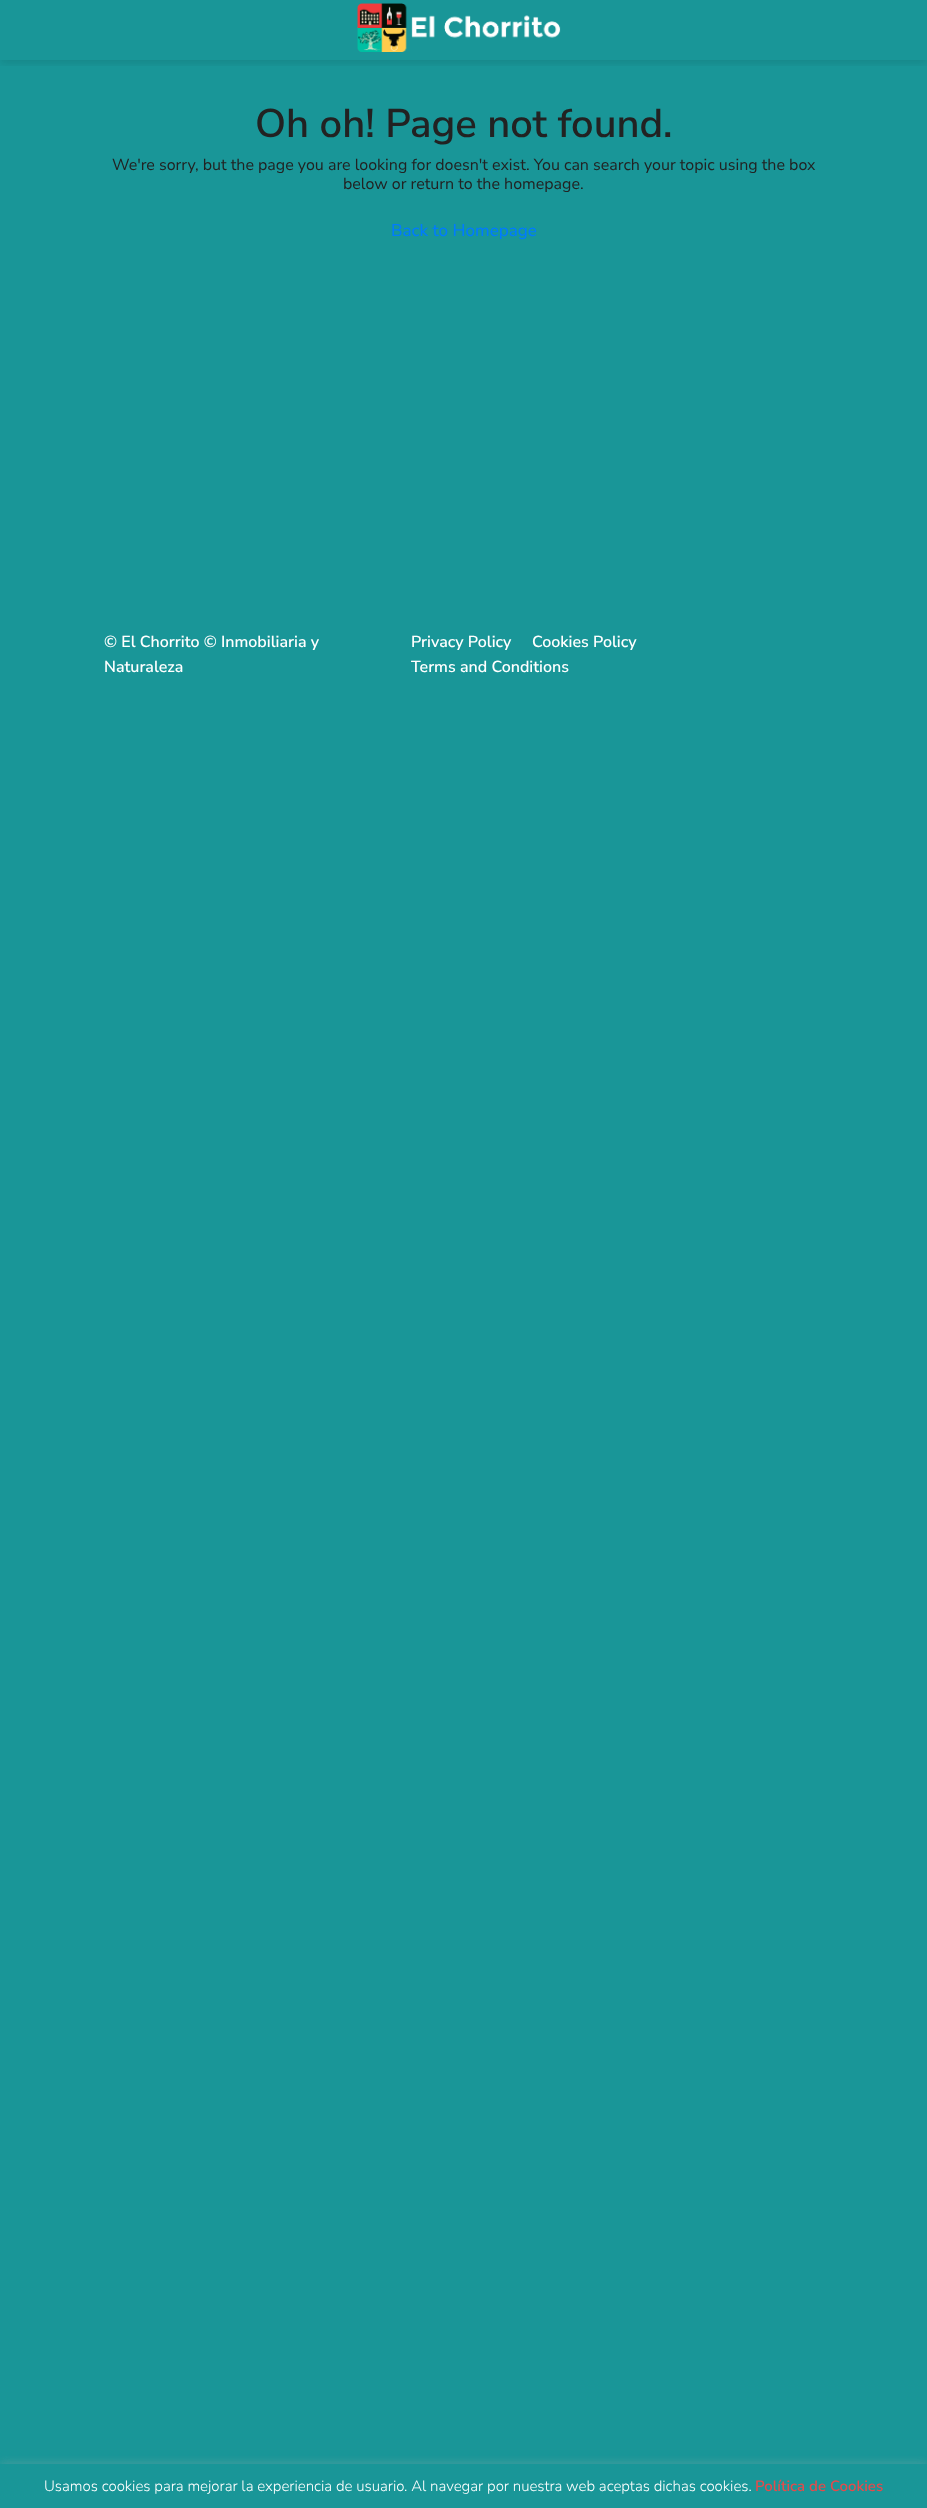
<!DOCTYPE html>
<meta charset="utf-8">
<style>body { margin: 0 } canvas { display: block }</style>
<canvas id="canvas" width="927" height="2508"></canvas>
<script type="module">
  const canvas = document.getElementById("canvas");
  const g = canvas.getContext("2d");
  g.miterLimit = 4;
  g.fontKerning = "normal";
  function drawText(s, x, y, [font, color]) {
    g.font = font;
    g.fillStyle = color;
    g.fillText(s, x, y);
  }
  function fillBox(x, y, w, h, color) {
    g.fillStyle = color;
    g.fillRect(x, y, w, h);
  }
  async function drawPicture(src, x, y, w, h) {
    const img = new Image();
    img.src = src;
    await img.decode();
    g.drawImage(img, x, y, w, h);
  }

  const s1 = ["600 40px Nunito Sans", "#222222"];
  const s2 = ["16px Nunito Sans", "#222222"];
  const s3 = ["500 17px Nunito Sans", "#007BFF"];
  const s4 = ["600 16px Nunito Sans", "#FFFFFF"];
  const s5 = ["300 15px Nunito Sans", "#FFFFFF"];
  const s6 = ["600 15px Nunito Sans", "#E64A4B"];

  fillBox(0, 0, 927, 2508, "#199698");
  g.save();
  g.beginPath();
  g.rect(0, 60, 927, 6);
  g.clip();
  g.fillStyle = "rgba(0, 0, 0, 0.1)";
  g.filter = "blur(4px)";
  g.beginPath();
  g.rect(0, 3, 927, 60);
  g.fill();
  g.filter = "none";
  g.restore();
  await drawPicture("pic1.png", 357, 3, 204, 49);
  drawText("Oh oh! Page not found.", 255, 137, s1);
  drawText("We're sorry, but the page you are looking for doesn't exist. You can search your topic using the box", 112, 170, s2);
  drawText("below or return to the homepage.", 343, 189, s2);
  drawText("Back to Homepage", 391, 236, s3);
  drawText("© El Chorrito © Inmobiliaria y", 104, 647, s4);
  drawText("Naturaleza", 104, 672, s4);
  drawText("Privacy Policy", 411, 647, s4);
  drawText("Cookies Policy", 532, 647, s4);
  drawText("Terms and Conditions", 411, 672, s4);
  g.save();
  g.beginPath();
  g.rect(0, 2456, 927, 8);
  g.clip();
  g.fillStyle = "rgba(172, 171, 171, 0.3)";
  g.filter = "blur(5px)";
  g.beginPath();
  g.rect(0, 2463, 927, 44);
  g.fill();
  g.filter = "none";
  g.restore();
  drawText("Usamos cookies para mejorar la experiencia de usuario. Al navegar por nuestra web aceptas dichas cookies.", 44, 2491, s5);
  drawText("Política de Cookies", 755, 2491, s6);
</script>
